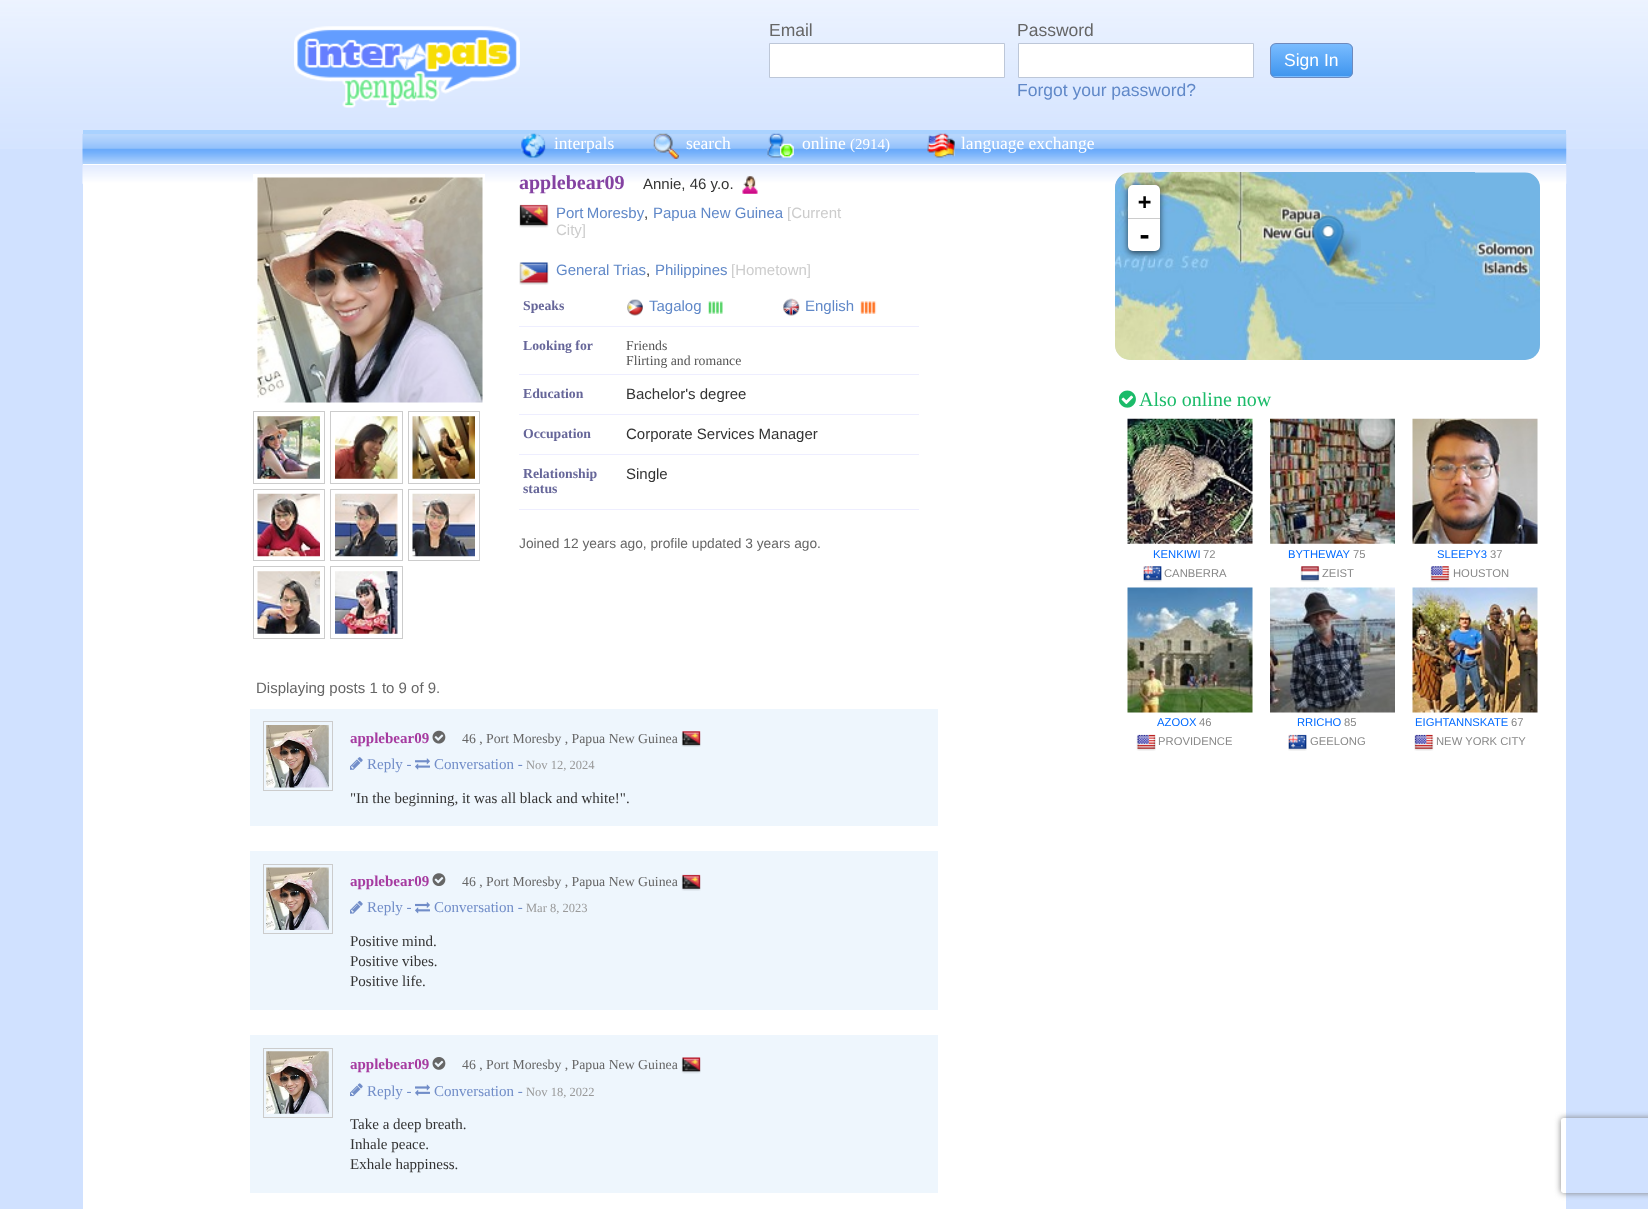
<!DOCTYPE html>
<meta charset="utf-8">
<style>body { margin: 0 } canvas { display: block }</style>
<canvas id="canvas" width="1648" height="1209"></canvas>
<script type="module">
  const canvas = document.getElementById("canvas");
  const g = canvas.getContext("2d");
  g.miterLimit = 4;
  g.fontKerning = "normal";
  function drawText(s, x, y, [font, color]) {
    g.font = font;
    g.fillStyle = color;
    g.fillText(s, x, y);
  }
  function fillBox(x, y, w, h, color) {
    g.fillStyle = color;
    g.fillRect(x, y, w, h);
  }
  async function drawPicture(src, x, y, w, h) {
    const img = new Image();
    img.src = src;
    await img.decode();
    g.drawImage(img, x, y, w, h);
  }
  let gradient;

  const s1 = ["17.5px Liberation Sans", "#666666"];
  const s2 = ["17.5px Liberation Sans", "#6088C8"];
  const s3 = ["17.5px Liberation Sans", "#FFFFFF"];
  const s4 = ["17.5px Liberation Serif", "#FFFFFF"];
  const s5 = ["15px Liberation Serif", "#FFFFFF"];
  const s6 = ["bold 20px Liberation Serif", "#8442A2"];
  const s7 = ["15px Liberation Sans", "#333333"];
  const s8 = ["15px Liberation Sans", "#6088C8"];
  const s9 = ["15px Liberation Sans", "#CCCCCC"];
  const s10 = ["bold 13.75px Liberation Serif", "#666699"];
  const s11 = ["13.75px Liberation Serif", "#555555"];
  const s12 = ["13.75px Liberation Sans", "#666666"];
  const s13 = ["15px Liberation Sans", "#666666"];
  const s14 = ["bold 15px Liberation Serif", "#A63BA0"];
  const s15 = ["13.75px Liberation Serif", "#666666"];
  const s16 = ["15px Liberation Serif", "#718DC8"];
  const s17 = ["12.5px Liberation Serif", "#999999"];
  const s18 = ["15px Liberation Serif", "#333333"];
  const s19 = ["bold 22px DejaVu Sans Mono", "#000000"];
  const s20 = ["bold 25px DejaVu Sans Mono", "#000000"];
  const s21 = ["20px Liberation Serif", "#1BBB69"];
  const s22 = ["11.25px Liberation Sans", "#006AFF"];
  const s23 = ["11.25px Liberation Sans", "#888888"];

  fillBox(0, 0, 1648, 1209, "#D0E1FF");
  await drawPicture("pic1.png", 0, 0, 1648, 149);
  await drawPicture("pic2.png", 294, 26, 226, 82);
  drawText("Email", 769, 36, s1);
  g.fillStyle = "#FFFFFF";
  g.beginPath();
  g.rect(769.5, 43.5, 235, 34);
  g.fill();
  g.strokeStyle = "#BDC7D8";
  g.stroke();
  drawText("Password", 1017, 36, s1);
  g.fillStyle = "#FFFFFF";
  g.beginPath();
  g.rect(1018.5, 43.5, 235, 34);
  g.fill();
  g.stroke();
  drawText("Forgot your password?", 1017, 96, s2);
  g.save();
  g.beginPath();
  g.roundRect(1270, 43, 83, 35, 6);
  g.clip();
  gradient = g.createLinearGradient(1311, 44, 1311, 76);
  gradient.addColorStop(0, "#7ABCFF");
  gradient.addColorStop(0.44, "#60ABF8");
  gradient.addColorStop(1, "#4096EE");
  g.fillStyle = gradient;
  g.fillRect(1270, 44, 83, 32);
  gradient = g.createLinearGradient(1311, 76, 1311, 109);
  gradient.addColorStop(0, "#7ABCFF");
  gradient.addColorStop(0.44, "#60ABF8");
  gradient.addColorStop(1, "#4096EE");
  g.fillStyle = gradient;
  g.fillRect(1270, 76, 83, 2);
  g.restore();
  g.beginPath();
  g.roundRect(1270.5, 43.5, 82, 34, 5.5);
  g.strokeStyle = "#6E89BC";
  g.stroke();
  drawText("Sign In", 1284, 66, s3);
  fillBox(83, 130, 1483, 34, "#A9D2FF");
  await drawPicture("pic3.png", 82, 134, 1485, 30);
  fillBox(83, 164, 1483, 1, "#FFFFFF");
  await drawPicture("pic4.png", 521, 133, 25, 25);
  drawText("interpals", 554, 149, s4);
  await drawPicture("pic5.png", 653, 133, 26, 26);
  drawText("search", 686, 149, s4);
  await drawPicture("pic6.png", 767, 133, 27, 25);
  drawText("online", 802, 149, s4);
  drawText("(2914)", 850, 149, s5);
  await drawPicture("pic7.png", 927, 133, 28, 25);
  drawText("language exchange", 961, 149, s4);
  fillBox(83, 183, 1483, 1026, "#FFFFFF");
  await drawPicture("pic8.png", 82, 165, 1485, 19);
  fillBox(253, 174, 232, 8, "#FFFFFF");
  await drawPicture("pic9.png", 257, 177, 226, 226);
  g.strokeStyle = "#CCCCCC";
  g.strokeRect(253.5, 411.5, 71, 72);
  await drawPicture("pic10.png", 257, 416, 63, 63);
  g.strokeRect(330.5, 411.5, 72, 72);
  await drawPicture("pic11.png", 335, 416, 63, 63);
  g.strokeRect(408.5, 411.5, 71, 72);
  await drawPicture("pic12.png", 412, 416, 63, 63);
  g.strokeRect(253.5, 489.5, 71, 71);
  await drawPicture("pic13.png", 257, 493, 63, 64);
  g.strokeRect(330.5, 489.5, 72, 71);
  await drawPicture("pic14.png", 335, 493, 63, 64);
  g.strokeRect(408.5, 489.5, 71, 71);
  await drawPicture("pic15.png", 412, 493, 63, 64);
  g.strokeRect(253.5, 566.5, 71, 72);
  await drawPicture("pic16.png", 257, 571, 63, 63);
  g.strokeRect(330.5, 566.5, 72, 72);
  await drawPicture("pic17.png", 335, 571, 63, 63);
  drawText("applebear09", 519, 189, s6);
  drawText("Annie, 46 y.o.", 643, 189, s7);
  await drawPicture("pic18.png", 742, 176, 16, 18);
  await drawPicture("pic19.png", 519, 204, 30, 24);
  g.wordSpacing = "-1px";
  drawText("Port Moresby", 556, 218, s8);
  g.wordSpacing = "0px";
  drawText(",", 644, 218, s7);
  drawText("Papua New Guinea", 653, 218, s8);
  drawText("[Current", 787, 218, s9);
  drawText("City]", 556, 235, s9);
  await drawPicture("pic20.png", 519, 262, 30, 23);
  drawText("General Trias", 556, 275, s8);
  drawText(",", 646, 275, s7);
  drawText("Philippines", 655, 275, s8);
  drawText("[Hometown]", 731, 275, s9);
  fillBox(519, 326, 400, 1, "#EEEEFF");
  drawText("Speaks", 523, 310, s10);
  await drawPicture("pic21.png", 627, 299, 16, 17);
  drawText("Tagalog", 649, 311, s8);
  await drawPicture("pic22.png", 708, 301, 15, 13);
  await drawPicture("pic23.png", 783, 298, 17, 18);
  drawText("English", 805, 311, s8);
  await drawPicture("pic24.png", 860, 301, 17, 13);
  fillBox(519, 374, 400, 1, "#EEEEFF");
  drawText("Looking for", 523, 350, s10);
  drawText("Friends", 626, 350, s11);
  drawText("Flirting and romance", 626, 365, s11);
  fillBox(519, 414, 400, 1, "#EEEEFF");
  drawText("Education", 523, 398, s10);
  drawText("Bachelor's degree", 626, 399, s7);
  fillBox(519, 454, 400, 1, "#EEEEFF");
  drawText("Occupation", 523, 438, s10);
  drawText("Corporate Services Manager", 626, 439, s7);
  fillBox(519, 509, 400, 1, "#EEEEFF");
  drawText("Relationship", 523, 478, s10);
  drawText("status", 523, 493, s10);
  drawText("Single", 626, 479, s7);
  drawText("Joined 12 years ago, profile updated 3 years ago.", 519, 548, s12);
  drawText("Displaying posts 1 to 9 of 9.", 256, 693, s13);
  fillBox(250, 709, 688, 117, "#EEF6FD");
  g.strokeRect(263.5, 721.5, 69, 69);
  await drawPicture("pic25.png", 266, 725, 63, 63);
  drawText("applebear09", 350, 743, s14);
  await drawPicture("pic26.png", 432, 730, 14, 14);
  drawText("46 , Port Moresby , Papua New Guinea", 462, 743, s15);
  await drawPicture("pic27.png", 681, 731, 20, 16);
  await drawPicture("pic28.png", 350, 757, 13, 13);
  drawText("Reply -", 367, 769, s16);
  await drawPicture("pic29.png", 415, 758, 15, 12);
  drawText("Conversation -", 434, 769, s16);
  drawText("Nov 12, 2024", 526, 769, s17);
  drawText("\"In the beginning, it was all black and white!\".", 350, 803, s18);
  fillBox(250, 851, 688, 159, "#EEF6FD");
  g.strokeRect(263.5, 864.5, 69, 69);
  await drawPicture("pic30.png", 266, 867, 63, 63);
  drawText("applebear09", 350, 886, s14);
  await drawPicture("pic31.png", 432, 873, 14, 13);
  drawText("46 , Port Moresby , Papua New Guinea", 462, 886, s15);
  await drawPicture("pic32.png", 681, 874, 20, 17);
  await drawPicture("pic33.png", 350, 900, 13, 14);
  drawText("Reply -", 367, 912, s16);
  await drawPicture("pic34.png", 415, 902, 15, 12);
  drawText("Conversation -", 434, 912, s16);
  drawText("Mar 8, 2023", 526, 912, s17);
  drawText("Positive mind.", 350, 946, s18);
  drawText("Positive vibes.", 350, 966, s18);
  drawText("Positive life.", 350, 986, s18);
  fillBox(250, 1035, 688, 158, "#EEF6FD");
  g.strokeRect(263.5, 1048.5, 69, 69);
  await drawPicture("pic35.png", 266, 1051, 63, 63);
  drawText("applebear09", 350, 1069, s14);
  await drawPicture("pic36.png", 432, 1057, 14, 13);
  drawText("46 , Port Moresby , Papua New Guinea", 462, 1069, s15);
  await drawPicture("pic37.png", 681, 1057, 20, 17);
  await drawPicture("pic38.png", 350, 1083, 13, 14);
  drawText("Reply -", 367, 1096, s16);
  await drawPicture("pic39.png", 415, 1084, 15, 12);
  drawText("Conversation -", 434, 1096, s16);
  drawText("Nov 18, 2022", 526, 1096, s17);
  drawText("Take a deep breath.", 350, 1129, s18);
  drawText("Inhale peace.", 350, 1149, s18);
  drawText("Exhale happiness.", 350, 1169, s18);
  await drawPicture("pic40.png", 1115, 173, 425, 187);
  await drawPicture("pic41.png", 1115, 172, 40, 188);
  await drawPicture("pic42.png", 1155, 172, 320, 188);
  await drawPicture("pic43.png", 1475, 172, 65, 188);
  await drawPicture("pic45.png", 1324, 231, 37, 36);
  await drawPicture("pic44.png", 1312, 215, 33, 52);
  g.fillStyle = "rgba(0, 0, 0, 0.65)";
  g.filter = "blur(3px)";
  g.beginPath();
  g.roundRect(1128, 186, 32, 67, 5);
  g.fill();
  g.filter = "none";
  g.fillStyle = "#FFFFFF";
  g.beginPath();
  g.roundRect(1128, 185, 32, 34, [5, 5, 0, 0]);
  g.fill();
  fillBox(1128, 218, 32, 1, "#CCCCCC");
  drawText("+", 1138, 209, s19);
  g.fillStyle = "#FFFFFF";
  g.beginPath();
  g.roundRect(1128, 219, 32, 32, [0, 0, 5, 5]);
  g.fill();
  drawText("-", 1137, 244, s20);
  await drawPicture("pic46.png", 1119, 390, 17, 18);
  drawText("Also online now", 1139, 406, s21);
  await drawPicture("pic47.png", 1127, 418, 126, 126);
  drawText("KENKIWI", 1153, 558, s22);
  drawText("72", 1203, 558, s23);
  await drawPicture("pic48.png", 1143, 566, 19, 16);
  drawText("CANBERRA", 1164, 577, s23);
  await drawPicture("pic49.png", 1270, 418, 125, 126);
  drawText("BYTHEWAY", 1288, 558, s22);
  drawText("75", 1353, 558, s23);
  await drawPicture("pic50.png", 1300, 566, 20, 16);
  drawText("ZEIST", 1322, 577, s23);
  await drawPicture("pic51.png", 1412, 418, 126, 126);
  drawText("SLEEPY3", 1437, 558, s22);
  drawText("37", 1490, 558, s23);
  await drawPicture("pic52.png", 1430, 566, 20, 16);
  drawText("HOUSTON", 1453, 577, s23);
  await drawPicture("pic53.png", 1127, 587, 126, 126);
  drawText("AZOOX", 1157, 726, s22);
  drawText("46", 1199, 726, s23);
  await drawPicture("pic54.png", 1136, 734, 20, 17);
  drawText("PROVIDENCE", 1158, 745, s23);
  await drawPicture("pic55.png", 1270, 587, 125, 126);
  drawText("RRICHO", 1297, 726, s22);
  drawText("85", 1344, 726, s23);
  await drawPicture("pic56.png", 1288, 734, 19, 17);
  drawText("GEELONG", 1310, 745, s23);
  await drawPicture("pic57.png", 1412, 587, 126, 126);
  drawText("EIGHTANNSKATE", 1415, 726, s22);
  drawText("67", 1511, 726, s23);
  await drawPicture("pic58.png", 1414, 734, 20, 17);
  drawText("NEW YORK CITY", 1436, 745, s23);
  g.save();
  g.beginPath();
  g.moveTo(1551, 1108);
  g.lineTo(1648, 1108);
  g.lineTo(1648, 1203);
  g.lineTo(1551, 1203);
  g.closePath();
  g.moveTo(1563.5, 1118);
  g.lineTo(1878.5, 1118);
  g.bezierCurveTo(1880, 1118, 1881, 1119, 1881, 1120.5);
  g.lineTo(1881, 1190.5);
  g.bezierCurveTo(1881, 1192, 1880, 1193, 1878.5, 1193);
  g.lineTo(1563.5, 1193);
  g.bezierCurveTo(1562, 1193, 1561, 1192, 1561, 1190.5);
  g.lineTo(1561, 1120.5);
  g.bezierCurveTo(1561, 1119, 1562, 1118, 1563.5, 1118);
  g.closePath();
  g.clip("evenodd");
  g.fillStyle = "#808080";
  g.filter = "blur(3px)";
  g.beginPath();
  g.roundRect(1561, 1118, 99, 75, 2.5);
  g.fill();
  g.filter = "none";
  g.restore();
</script>
